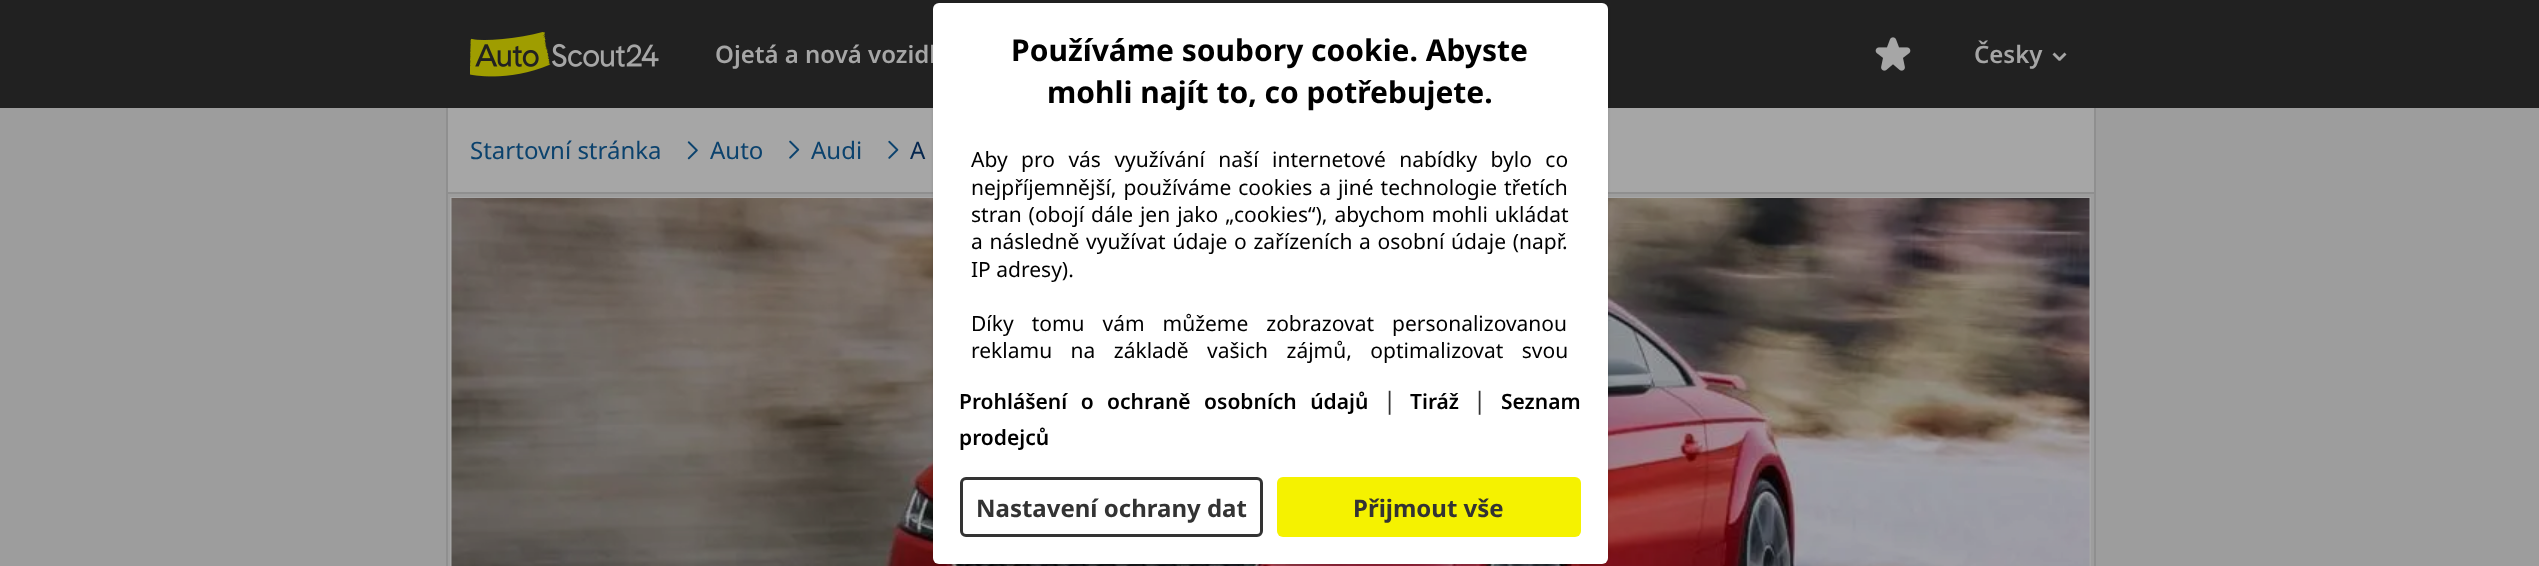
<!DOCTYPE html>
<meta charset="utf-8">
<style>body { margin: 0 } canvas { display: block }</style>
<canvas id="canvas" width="2539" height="566"></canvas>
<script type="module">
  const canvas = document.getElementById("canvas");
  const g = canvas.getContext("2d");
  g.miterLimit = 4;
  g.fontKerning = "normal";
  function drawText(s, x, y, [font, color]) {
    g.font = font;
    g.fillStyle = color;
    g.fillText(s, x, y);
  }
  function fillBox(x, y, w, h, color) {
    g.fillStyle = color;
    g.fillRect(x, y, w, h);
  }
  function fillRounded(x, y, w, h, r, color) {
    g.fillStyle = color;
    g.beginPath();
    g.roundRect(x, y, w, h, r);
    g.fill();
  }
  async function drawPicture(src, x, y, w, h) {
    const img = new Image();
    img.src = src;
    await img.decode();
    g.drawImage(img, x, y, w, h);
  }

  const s1 = ["600 24px Noto Sans", "#A6A6A6"];
  const s2 = ["bold 30px Noto Sans", "#000000"];
  const s3 = ["21px Noto Sans", "#000000"];
  const s4 = ["600 21px Noto Sans", "#000000"];
  const s5 = ["24px Noto Sans", "#333333"];
  const s6 = ["bold 24px Noto Sans", "#333333"];
  const s7 = ["24px Noto Sans", "#0B426D"];
  const s8 = ["24px Noto Sans", "#05264E"];

  fillBox(0, 0, 2539, 566, "#9D9D9D");
  fillBox(0, 0, 2539, 108, "#212121");
  fillBox(448, 108, 1646, 84, "#A6A6A6");
  fillBox(2094, 108, 2, 458, "#8F8F8F");
  fillBox(446, 192, 1650, 2, "#8F8F8F");
  g.strokeStyle = "#A6A6A6";
  g.lineWidth = 2;
  g.strokeRect(451, 198, 1639, 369);
  await drawPicture("pic6.png", 451, 198, 1639, 368);
  g.fillStyle = "rgba(0, 0, 0, 0.12)";
  g.filter = "blur(1.5px)";
  g.beginPath();
  g.roundRect(933, 3, 675, 561, 6);
  g.fill();
  g.filter = "none";
  drawText("Ojetá a nová vozidl", 715, 63, s1);
  fillRounded(933, 3, 675, 561, 6, "#FFFFFF");
  drawText("Používáme soubory cookie. Abyste", 1011, 61, s2);
  drawText("mohli najít to, co potřebujete.", 1047, 103, s2);
  g.wordSpacing = "8px";
  drawText("Aby pro vás využívání naší internetové nabídky bylo co", 971, 167, s3);
  g.wordSpacing = "1.5px";
  drawText("nejpříjemnější, používáme cookies a jiné technologie třetích", 971, 195, s3);
  drawText("stran (obojí dále jen jako „cookies“), abychom mohli ukládat", 971, 222, s3);
  g.wordSpacing = "1.25px";
  drawText("a následně využívat údaje o zařízeních a osobní údaje (např.", 971, 249, s3);
  g.wordSpacing = "0px";
  drawText("IP adresy).", 971, 277, s3);
  g.wordSpacing = "12.5px";
  drawText("Díky tomu vám můžeme zobrazovat personalizovanou", 971, 331, s3);
  g.wordSpacing = "13px";
  drawText("reklamu na základě vašich zájmů, optimalizovat svou", 971, 358, s3);
  g.wordSpacing = "8px";
  drawText("Prohlášení o ochraně osobních údajů", 959, 409, s4);
  g.wordSpacing = "0px";
  drawText("|", 1383, 409, s5);
  drawText("Tiráž", 1410, 409, s4);
  drawText("|", 1473, 409, s5);
  drawText("Seznam", 1501, 409, s4);
  drawText("prodejců", 959, 445, s4);
  g.beginPath();
  g.roundRect(961.5, 478.5, 300, 57, 4.5);
  g.strokeStyle = "#333333";
  g.lineWidth = 3;
  g.stroke();
  drawText("Nastavení ochrany dat", 976, 517, s6);
  fillRounded(1277, 477, 304, 60, 6, "#F5F200");
  drawText("Přijmout vše", 1353, 517, s6);
  await drawPicture("pic1.png", 470, 32, 189, 45);
  await drawPicture("pic2.png", 1875, 37, 36, 34);
  drawText("Česky", 1974, 63, s1);
  g.beginPath();
  g.moveTo(2066.5, 54.5);
  g.lineTo(2060, 61);
  g.lineTo(2058, 59);
  g.lineTo(2064.5, 52.5);
  g.closePath();
  g.fill();
  g.beginPath();
  g.moveTo(2061, 59);
  g.lineTo(2059, 61);
  g.lineTo(2052.5, 54.5);
  g.lineTo(2054.5, 52.5);
  g.closePath();
  g.fill();
  fillBox(446, 108, 2, 458, "#8F8F8F");
  drawText("Startovní stránka", 470, 159, s7);
  await drawPicture("pic3.png", 687, 141, 11, 19);
  drawText("Auto", 710, 159, s7);
  await drawPicture("pic4.png", 789, 140, 11, 19);
  drawText("Audi", 811, 159, s7);
  await drawPicture("pic5.png", 888, 140, 11, 19);
  drawText("A", 910, 159, s8);
</script>
